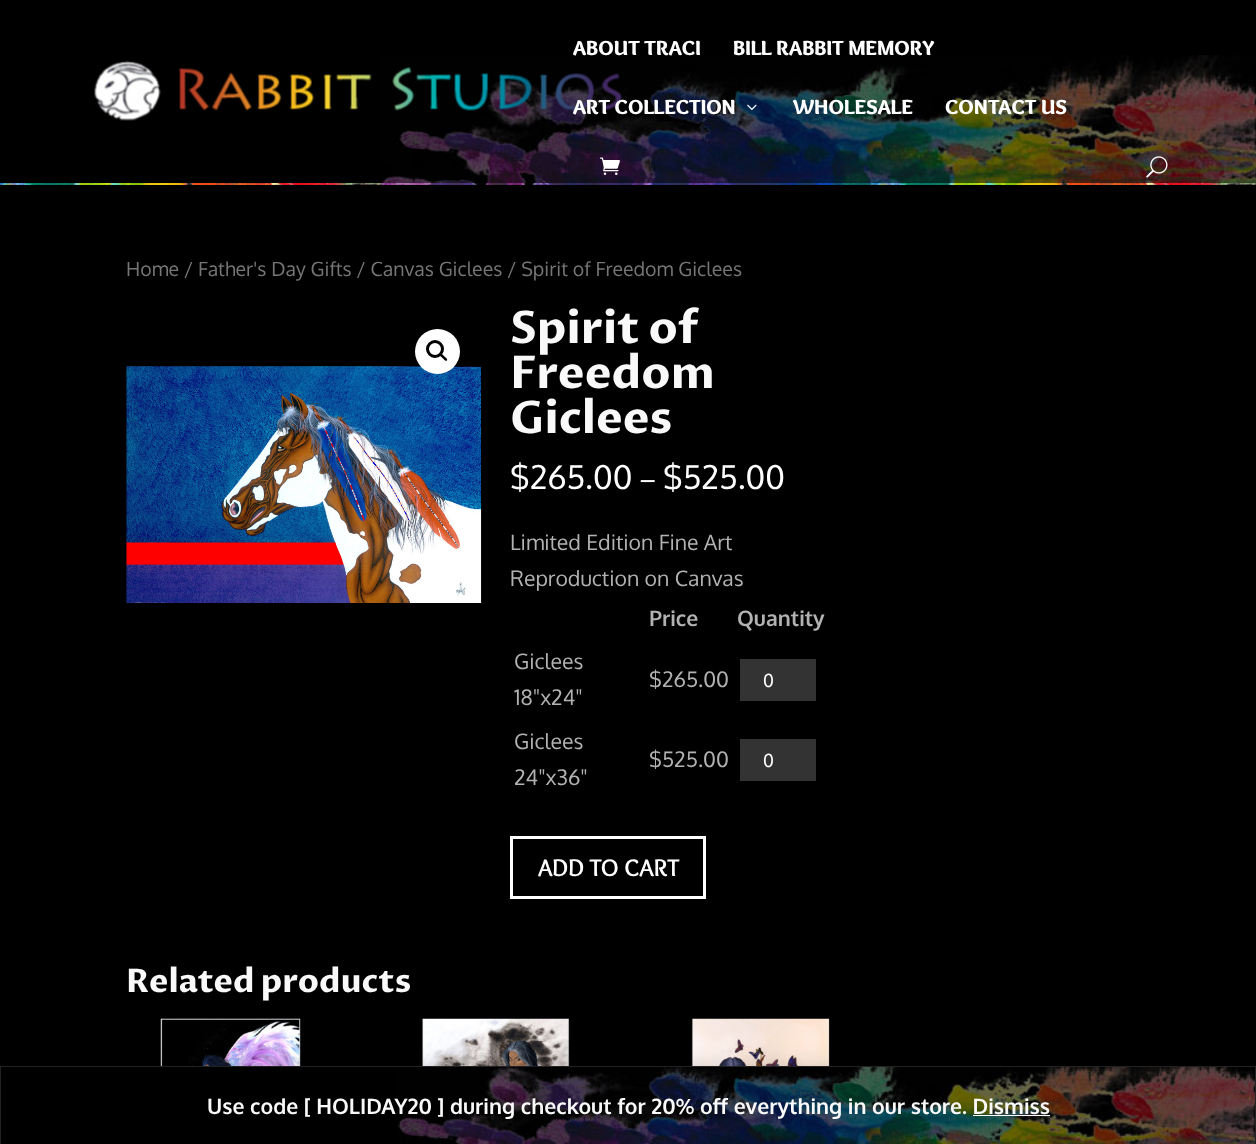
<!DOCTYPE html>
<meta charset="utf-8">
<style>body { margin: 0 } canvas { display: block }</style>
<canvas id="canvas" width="1256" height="1144"></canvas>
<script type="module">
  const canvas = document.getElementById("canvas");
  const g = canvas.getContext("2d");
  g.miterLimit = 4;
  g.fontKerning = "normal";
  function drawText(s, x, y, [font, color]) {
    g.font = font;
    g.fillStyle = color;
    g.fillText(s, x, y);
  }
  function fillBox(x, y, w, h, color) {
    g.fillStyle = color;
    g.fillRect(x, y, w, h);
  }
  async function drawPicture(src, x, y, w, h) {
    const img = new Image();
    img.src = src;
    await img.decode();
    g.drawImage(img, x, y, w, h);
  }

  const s1 = ["900 21.25px Overlock", "#FFFFFF"];
  const s2 = ["19.55px Oxygen", "#767676"];
  const s3 = ["bold 45px Proza Libre", "#F9F9F9"];
  const s4 = ["32.5px Oxygen", "#FFFFFF"];
  const s5 = ["27px Oxygen", "#FFFFFF"];
  const s6 = ["21.25px Oxygen", "#B2B2B2"];
  const s7 = ["bold 21.25px Oxygen", "#B2B2B2"];
  const s8 = ["18px Oxygen", "#FFFFFF"];
  const s9 = ["bold 25px Overlock", "#FFFFFF"];
  const s10 = ["bold 32.5px Proza Libre", "#F9F9F9"];
  const s11 = ["bold 21.25px Oxygen", "#F9F9F9"];

  fillBox(0, 0, 1256, 1144, "#000000");
  await drawPicture("pic1.png", 0, 183, 1256, 2);
  await drawPicture("pic2.png", 381, 55, 875, 128);
  await drawPicture("pic3.png", 94, 60, 528, 61);
  drawText("ABOUT TRACI", 573, 55, s1);
  drawText("BILL RABBIT MEMORY", 733, 55, s1);
  drawText("ART COLLECTION", 573, 114, s1);
  await drawPicture("pic4.png", 747, 104, 10, 6);
  drawText("WHOLESALE", 793, 114, s1);
  drawText("CONTACT US", 945, 114, s1);
  await drawPicture("pic5.png", 600, 157, 20, 18);
  await drawPicture("pic6.png", 1146, 156, 22, 22);
  drawText("Home / Father's Day Gifts / Canvas Giclees / Spirit of Freedom Giclees", 126, 276, s2);
  await drawPicture("pic7.png", 126, 366, 356, 237);
  g.fillStyle = "#FFFFFF";
  g.beginPath();
  g.arc(437.5, 351.5, 22.5, 0, Math.PI * 2);
  g.fill();
  g.beginPath();
  g.arc(435, 349, 7.5, 0, Math.PI * 2);
  g.strokeStyle = "#000000";
  g.lineWidth = 3;
  g.stroke();
  g.fillStyle = "#000000";
  g.beginPath();
  g.moveTo(439.5, 353.5);
  g.bezierCurveTo(441, 352, 443.5, 355.5, 444, 356);
  g.bezierCurveTo(445, 357, 448, 359, 447, 360.5);
  g.bezierCurveTo(445.5, 362, 443, 358.5, 442.5, 358);
  g.bezierCurveTo(441.5, 357, 438.5, 355, 439.5, 353.5);
  g.closePath();
  g.fill();
  drawText("Spirit of", 510, 343, s3);
  drawText("Freedom", 510, 388, s3);
  drawText("Giclees", 510, 433, s3);
  drawText("$265.00", 510, 489, s4);
  drawText("–", 639, 489, s5);
  drawText("$525.00", 663, 489, s4);
  drawText("Limited Edition Fine Art", 510, 550, s6);
  drawText("Reproduction on Canvas", 510, 586, s6);
  drawText("Price", 649, 626, s7);
  drawText("Quantity", 737, 626, s7);
  drawText("Giclees", 514, 669, s6);
  drawText("18\"x24\"", 514, 705, s6);
  drawText("$265.00", 649, 687, s6);
  fillBox(740, 659, 76, 42, "#333333");
  drawText("0", 763, 687, s8);
  drawText("Giclees", 514, 749, s6);
  drawText("24\"x36\"", 514, 785, s6);
  drawText("$525.00", 649, 767, s6);
  fillBox(740, 739, 76, 42, "#333333");
  drawText("0", 763, 767, s8);
  g.strokeStyle = "#FFFFFF";
  g.strokeRect(511.5, 837.5, 193, 60);
  drawText("ADD TO CART", 538, 876, s9);
  drawText("Related products", 126, 992, s10);
  await drawPicture("pic8.png", 160, 1018, 144, 48);
  await drawPicture("pic9.png", 422, 1018, 148, 48);
  await drawPicture("pic10.png", 690, 1018, 140, 48);
  g.fillStyle = "rgba(0, 0, 0, 0.2)";
  g.filter = "blur(10.5px)";
  g.beginPath();
  g.rect(0, 1068, 1256, 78);
  g.fill();
  g.filter = "none";
  await drawPicture("pic11.png", 398, 1067, 857, 77);
  g.strokeStyle = "#222222";
  g.lineWidth = 1;
  g.strokeRect(0.5, 1066.5, 1255, 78);
  drawText("Use code [ HOLIDAY20 ] during checkout for 20% off everything in our store. Dismiss", 207, 1114, s11);
  fillBox(973, 1115, 77, 1, "#FCFBFE");
</script>
